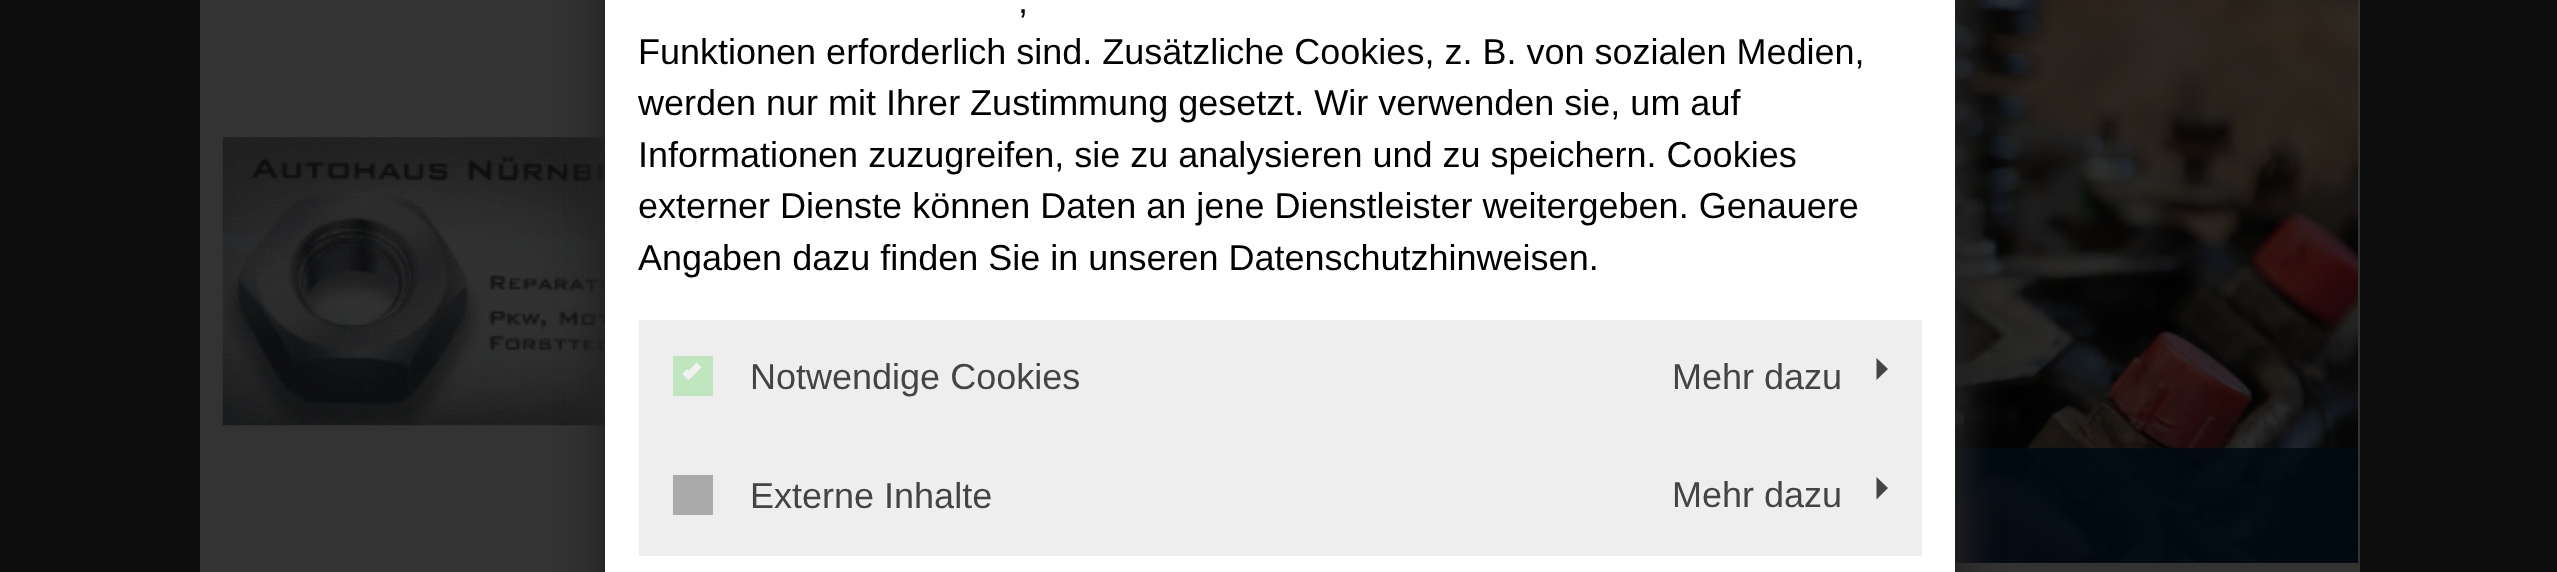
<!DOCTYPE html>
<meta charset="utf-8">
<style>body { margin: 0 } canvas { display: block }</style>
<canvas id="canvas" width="2557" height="572"></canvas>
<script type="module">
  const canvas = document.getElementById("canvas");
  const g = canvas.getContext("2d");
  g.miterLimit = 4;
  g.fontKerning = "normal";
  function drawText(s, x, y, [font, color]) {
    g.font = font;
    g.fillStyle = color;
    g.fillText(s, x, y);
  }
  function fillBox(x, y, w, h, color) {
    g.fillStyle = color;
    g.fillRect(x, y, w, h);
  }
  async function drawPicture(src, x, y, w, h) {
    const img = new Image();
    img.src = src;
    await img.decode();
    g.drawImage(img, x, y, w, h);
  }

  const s1 = ["36px Liberation Sans", "#000000"];
  const s2 = ["36px Liberation Sans", "#444444"];

  fillBox(0, 0, 2557, 572, "#0D0D0D");
  fillBox(200, 0, 2160, 572, "#333333");
  await drawPicture("pic1.png", 222, 137, 383, 289);
  await drawPicture("pic2.png", 1955, 0, 403, 563);
  fillBox(1955, 448, 403, 115, "rgba(0, 10, 20, 0.85)");
  g.fillStyle = "#222222";
  g.filter = "blur(17px)";
  g.beginPath();
  g.roundRect(594, -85, 1373, 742, 34);
  g.fill();
  g.filter = "none";
  fillBox(605, 0, 1350, 572, "#FFFFFF");
  drawText(",", 1018, 13, s1);
  drawText("Funktionen erforderlich sind. Zusätzliche Cookies, z. B. von sozialen Medien,", 638, 64, s1);
  drawText("werden nur mit Ihrer Zustimmung gesetzt. Wir verwenden sie, um auf", 638, 115, s1);
  drawText("Informationen zuzugreifen, sie zu analysieren und zu speichern. Cookies", 638, 167, s1);
  drawText("externer Dienste können Daten an jene Dienstleister weitergeben. Genauere", 638, 218, s1);
  drawText("Angaben dazu finden Sie in unseren Datenschutzhinweisen.", 638, 270, s1);
  fillBox(639, 320, 1283, 236, "#EEEEEE");
  fillBox(673, 356, 40, 40, "#BFE6BF");
  g.fillStyle = "#F2F2F2";
  g.beginPath();
  g.moveTo(696.5, 362.5);
  g.lineTo(701.5, 367.5);
  g.lineTo(688.5, 380);
  g.lineTo(684, 375.5);
  g.closePath();
  g.fill();
  g.beginPath();
  g.moveTo(687, 369);
  g.lineTo(693.5, 375.5);
  g.lineTo(688.5, 380);
  g.lineTo(682.5, 374);
  g.closePath();
  g.fill();
  drawText("Notwendige Cookies", 750, 389, s2);
  drawText("Mehr dazu", 1672, 389, s2);
  g.beginPath();
  g.moveTo(1876.5, 380);
  g.lineTo(1876.5, 358);
  g.lineTo(1888, 369);
  g.closePath();
  g.fill();
  fillBox(673, 475, 40, 40, "#AAAAAA");
  drawText("Externe Inhalte", 750, 508, s2);
  drawText("Mehr dazu", 1672, 507, s2);
  g.beginPath();
  g.moveTo(1876.5, 499.5);
  g.lineTo(1876.5, 477);
  g.lineTo(1888, 488);
  g.closePath();
  g.fill();
</script>
